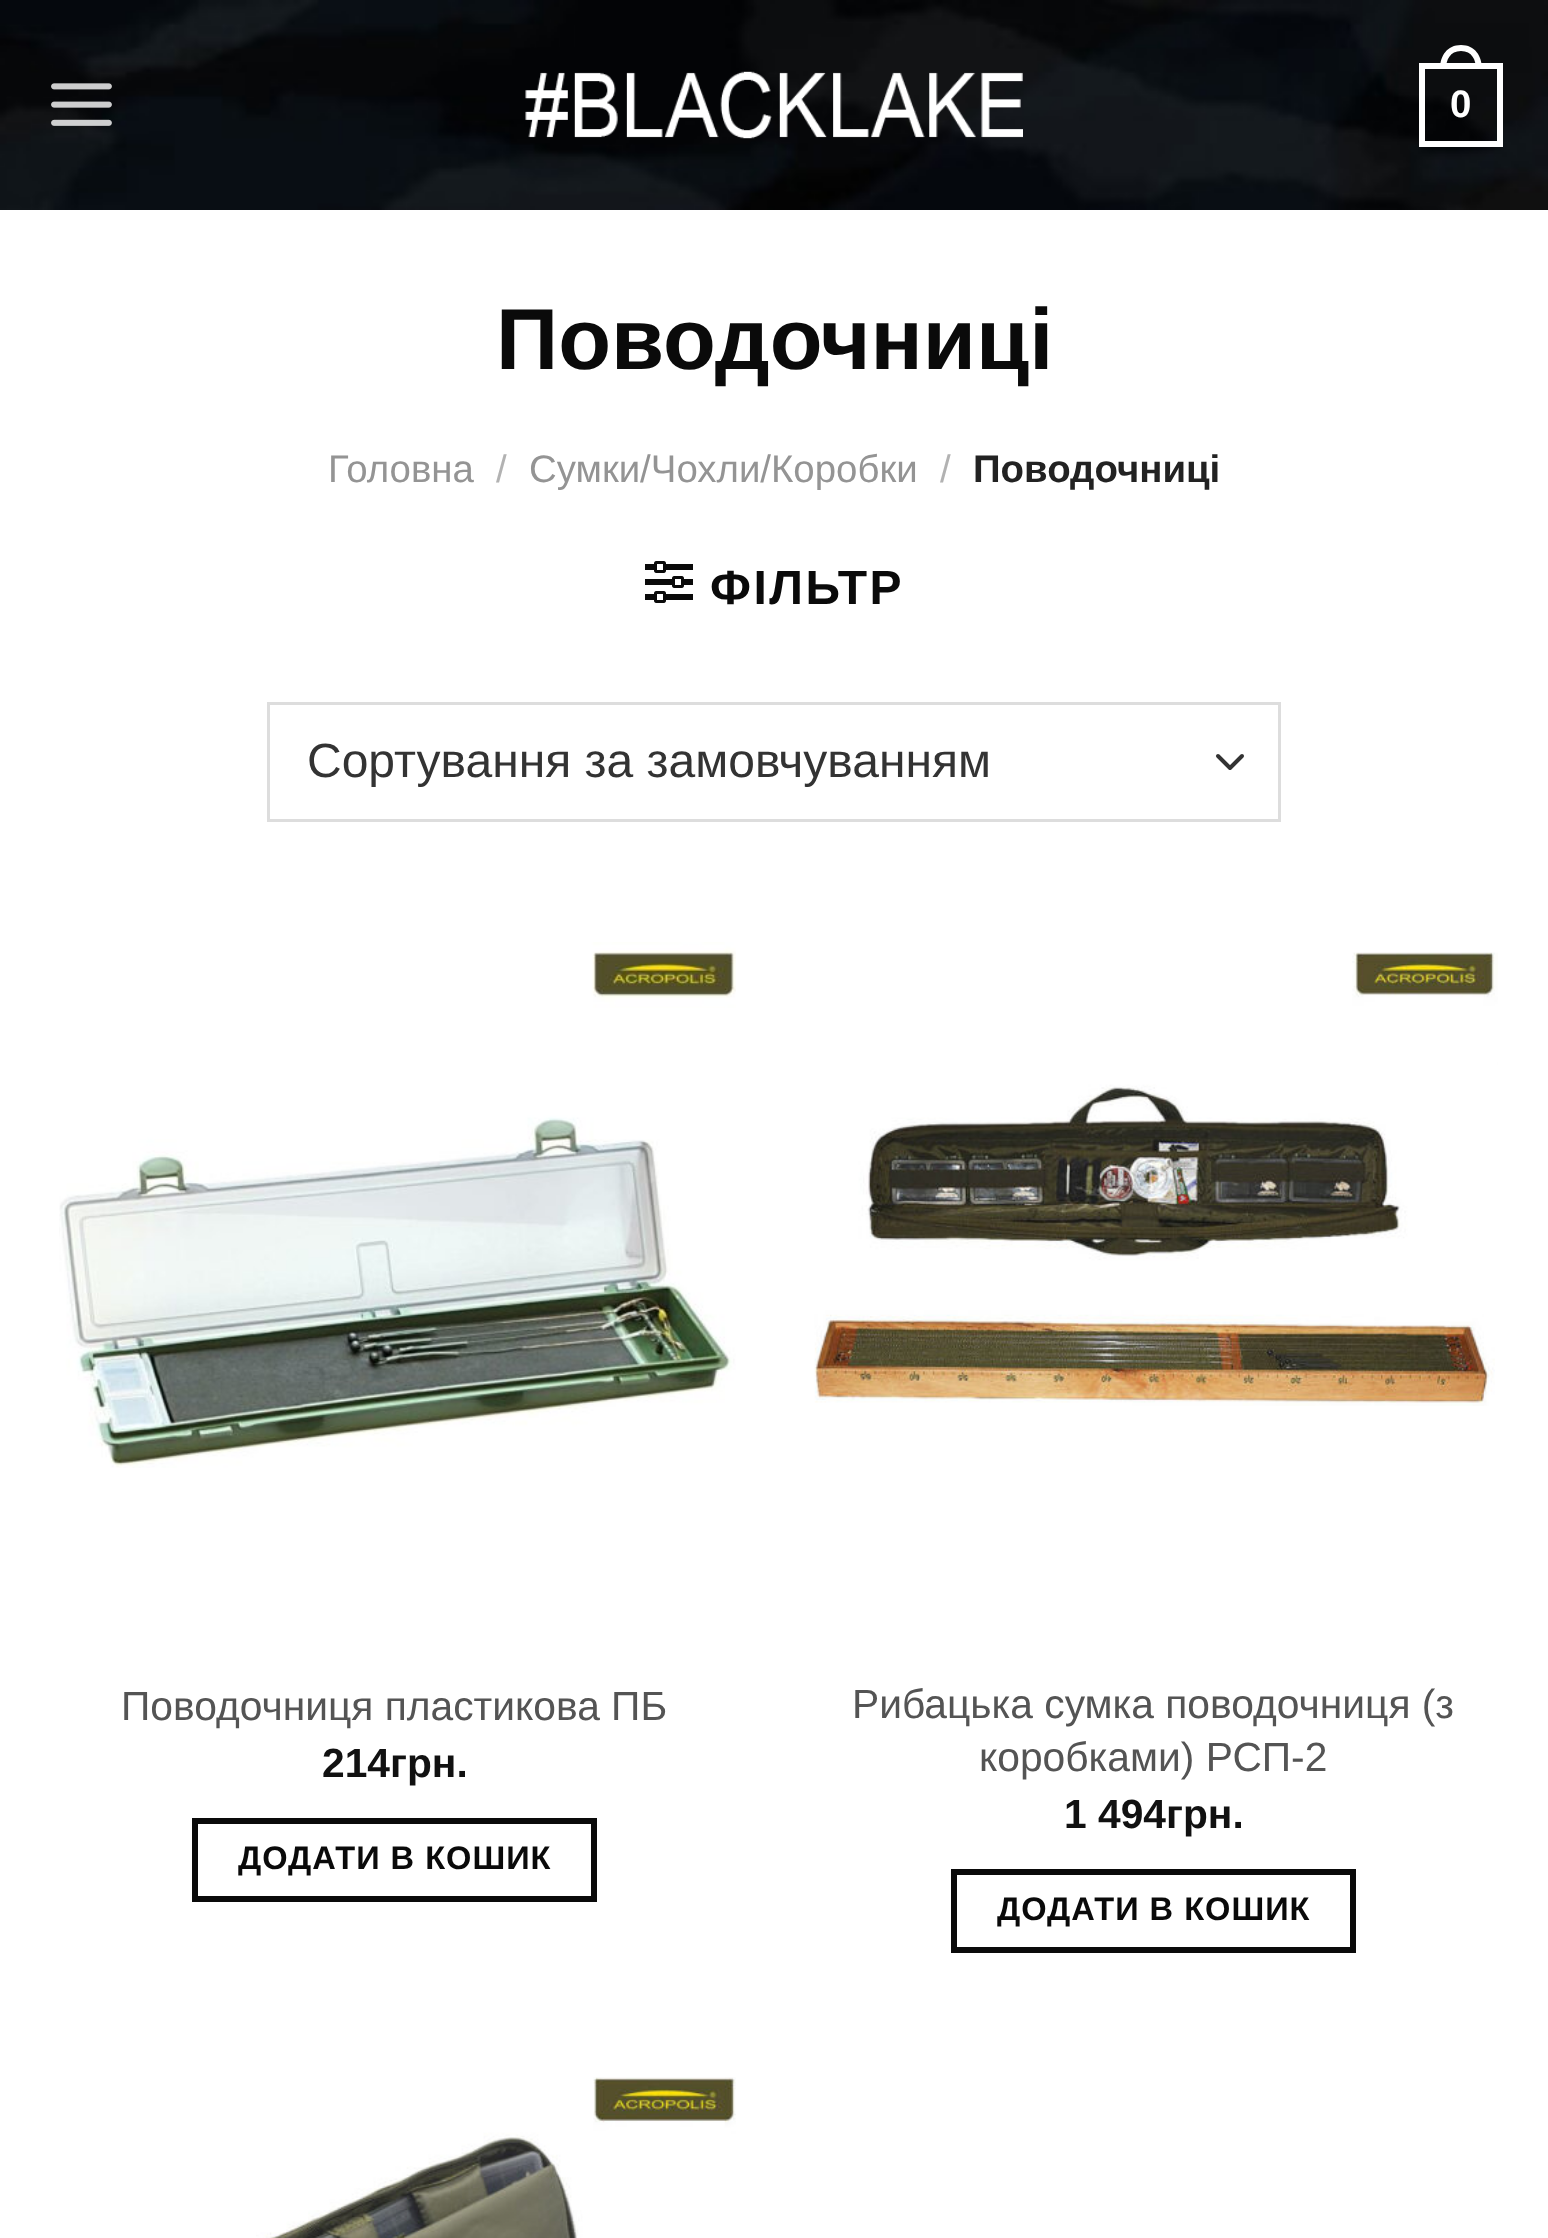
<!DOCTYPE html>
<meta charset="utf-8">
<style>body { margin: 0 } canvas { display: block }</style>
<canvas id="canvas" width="1548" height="2238"></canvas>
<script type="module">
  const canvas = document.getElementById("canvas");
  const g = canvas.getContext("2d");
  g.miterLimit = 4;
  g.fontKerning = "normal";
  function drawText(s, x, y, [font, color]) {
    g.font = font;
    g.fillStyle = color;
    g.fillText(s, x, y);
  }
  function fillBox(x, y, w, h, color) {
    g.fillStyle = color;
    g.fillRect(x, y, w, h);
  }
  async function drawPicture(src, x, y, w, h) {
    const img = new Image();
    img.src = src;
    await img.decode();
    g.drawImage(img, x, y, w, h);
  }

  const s1 = ["bold 38.4px Liberation Sans", "#FFFFFF"];
  const s2 = ["bold 86.5px Liberation Sans", "#0A0A0A"];
  const s3 = ["38.4px Liberation Sans", "#949494"];
  const s4 = ["38.4px Liberation Sans", "#B2B2B2"];
  const s5 = ["bold 38.4px Liberation Sans", "#222222"];
  const s6 = ["bold 48px Liberation Sans", "#0A0A0A"];
  const s7 = ["48px Liberation Sans", "#333333"];
  const s8 = ["40.75px Liberation Sans", "#545454"];
  const s9 = ["bold 40.75px Liberation Sans", "#111111"];
  const s10 = ["bold 32.6px Liberation Sans", "#0A0A0A"];

  fillBox(0, 0, 1548, 2238, "#FFFFFF");
  await drawPicture("pic1.png", 0, 0, 1548, 210);
  await drawPicture("pic2.png", 51, 83, 61, 43);
  await drawPicture("pic3.png", 525, 71, 498, 68);
  g.strokeStyle = "#FFFFFF";
  g.lineWidth = 6;
  g.strokeRect(1422, 66, 78, 78);
  g.beginPath();
  g.moveTo(1461, 45);
  g.bezierCurveTo(1475, 45, 1482, 56, 1482, 69);
  g.lineTo(1440, 69);
  g.bezierCurveTo(1440, 56, 1447, 45, 1461, 45);
  g.closePath();
  g.moveTo(1461, 51);
  g.bezierCurveTo(1472, 51, 1476, 60, 1476, 69);
  g.lineTo(1446, 69);
  g.bezierCurveTo(1446, 60, 1450, 51, 1461, 51);
  g.closePath();
  g.fill("evenodd");
  drawText("0", 1450, 117, s1);
  drawText("Поводочниці", 496, 369, s2);
  drawText("Головна", 328, 482, s3);
  drawText("/", 496, 482, s4);
  drawText("Сумки/Чохли/Коробки", 529, 482, s3);
  drawText("/", 940, 482, s4);
  drawText("Поводочниці", 973, 482, s5);
  await drawPicture("pic4.png", 645, 561, 48, 42);
  g.letterSpacing = "2.5px";
  drawText("ФІЛЬТР", 710, 604, s6);
  g.beginPath();
  g.moveTo(1218, 756);
  g.lineTo(1230, 768);
  g.lineTo(1242, 756);
  g.strokeStyle = "#333333";
  g.lineWidth = 4;
  g.lineCap = "round";
  g.lineJoin = "round";
  g.stroke();
  g.strokeStyle = "#DDDDDD";
  g.lineWidth = 3;
  g.lineJoin = "miter";
  g.strokeRect(268.5, 703.5, 1011, 117);
  g.letterSpacing = "0px";
  drawText("Сортування за замовчуванням", 307, 777, s7);
  await drawPicture("pic5.png", 59, 942, 677, 526);
  drawText("Поводочниця пластикова ПБ", 121, 1720, s8);
  drawText("214грн.", 322, 1777, s9);
  g.strokeStyle = "#0A0A0A";
  g.lineWidth = 6;
  g.strokeRect(195, 1821, 399, 78);
  g.letterSpacing = "1px";
  drawText("ДОДАТИ В КОШИК", 238, 1869, s10);
  await drawPicture("pic6.png", 814, 952, 684, 454);
  g.letterSpacing = "0px";
  drawText("Рибацька сумка поводочниця (з", 852, 1718, s8);
  drawText("коробками) РСП-2", 979, 1771, s8);
  drawText("1 494грн.", 1064, 1828, s9);
  g.strokeRect(954, 1872, 399, 78);
  g.letterSpacing = "1px";
  drawText("ДОДАТИ В КОШИК", 997, 1920, s10);
  await drawPicture("pic7.png", 256, 2077, 480, 161);
</script>
